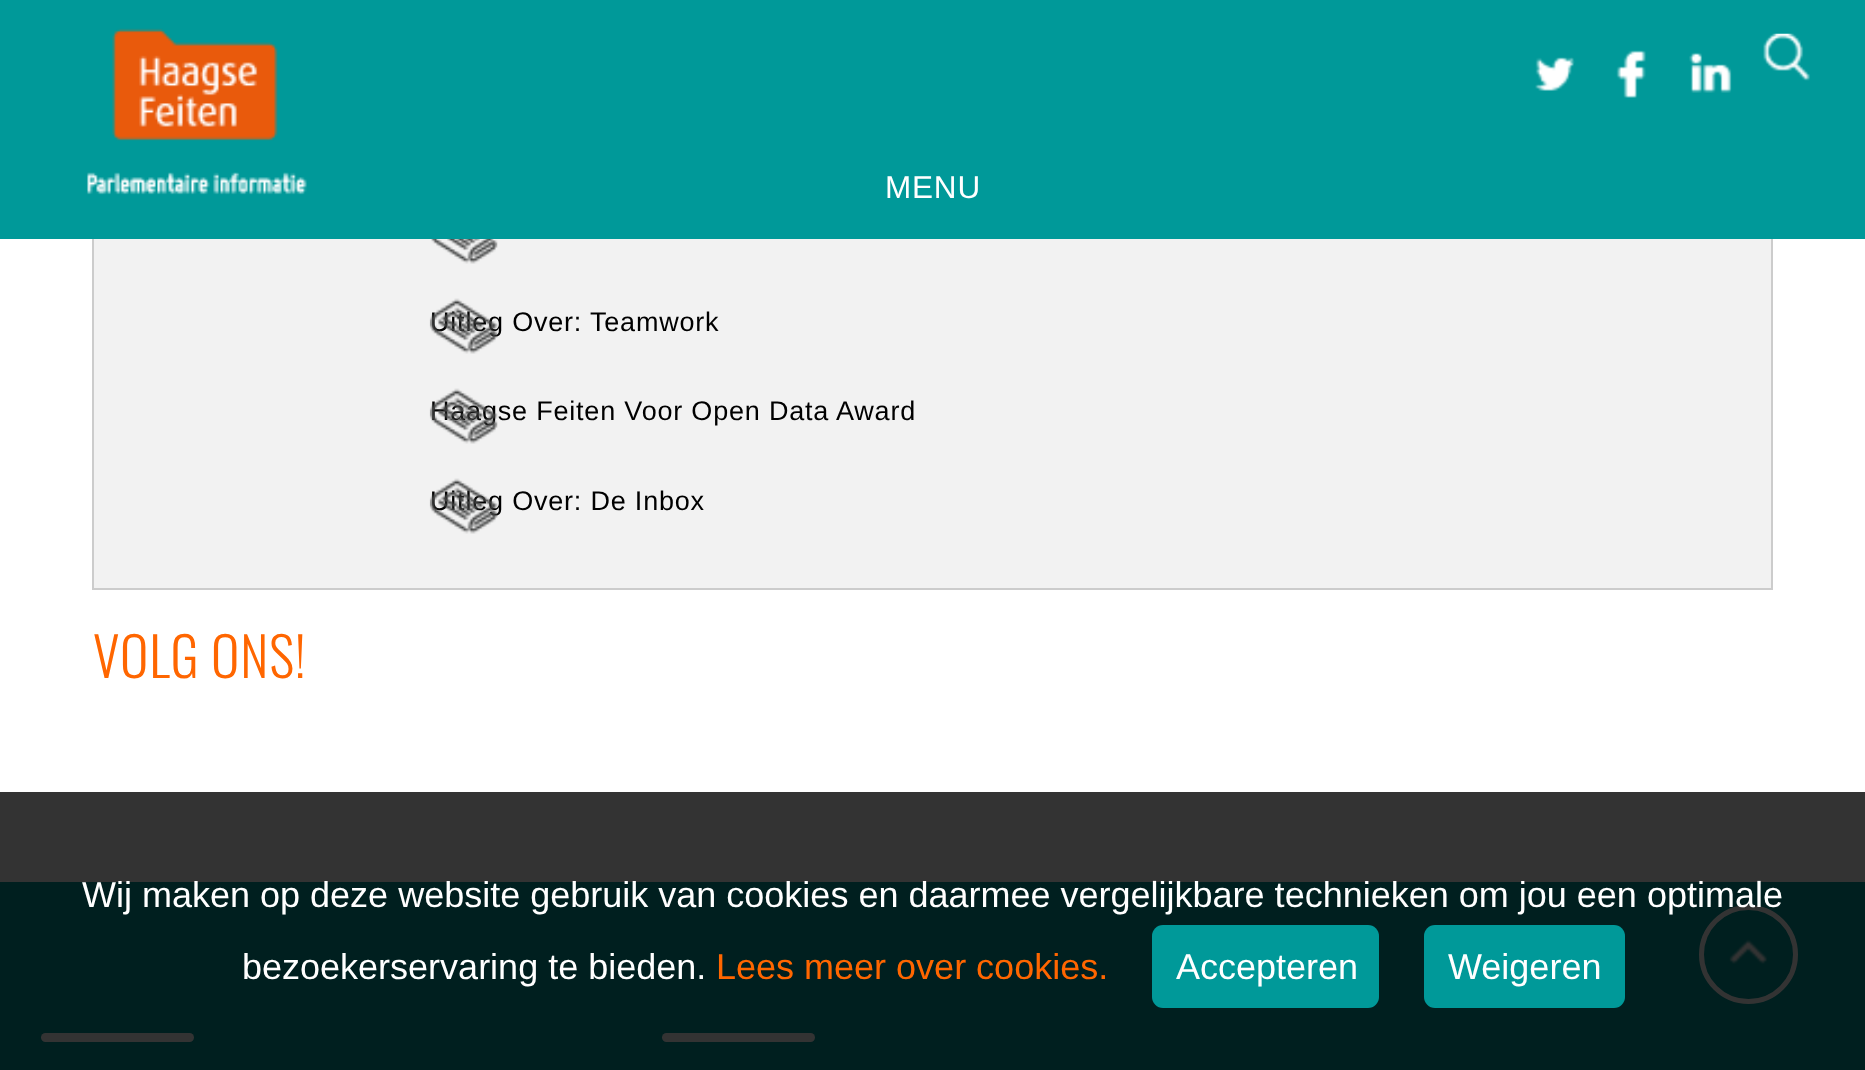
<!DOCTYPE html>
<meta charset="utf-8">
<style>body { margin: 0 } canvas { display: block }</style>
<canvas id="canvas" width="1865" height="1070"></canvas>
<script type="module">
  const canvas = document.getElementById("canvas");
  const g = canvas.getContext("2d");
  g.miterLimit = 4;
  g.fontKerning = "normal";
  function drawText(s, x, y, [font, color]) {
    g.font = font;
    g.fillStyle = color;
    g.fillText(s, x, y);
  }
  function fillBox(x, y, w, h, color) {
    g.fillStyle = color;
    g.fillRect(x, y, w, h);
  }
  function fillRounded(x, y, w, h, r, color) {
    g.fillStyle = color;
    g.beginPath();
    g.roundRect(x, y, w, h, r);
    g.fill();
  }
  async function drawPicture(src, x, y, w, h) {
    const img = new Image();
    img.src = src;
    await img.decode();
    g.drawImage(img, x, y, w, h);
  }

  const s1 = ["31.5px Liberation Sans", "#FFFFFF"];
  const s2 = ["27px Liberation Sans", "#000000"];
  const s3 = ["300 54px Oswald", "#FF6600"];
  const s4 = ["36px Liberation Sans", "#FFFFFF"];
  const s5 = ["36px Liberation Sans", "#FF6600"];

  fillBox(0, 0, 1865, 1070, "#FFFFFF");
  fillBox(94, 239, 1677, 349, "#F2F2F2");
  g.strokeStyle = "#CCCCCC";
  g.lineWidth = 2;
  g.strokeRect(93, -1, 1679, 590);
  fillBox(0, 0, 1865, 239, "#009999");
  await drawPicture("pic1.png", 87, 28, 220, 167);
  await drawPicture("pic2.png", 1535, 57, 40, 34);
  await drawPicture("pic3.png", 1616, 50, 30, 48);
  await drawPicture("pic4.png", 1689, 52, 43, 41);
  await drawPicture("pic5.png", 1763, 33, 47, 48);
  g.letterSpacing = "0.8px";
  drawText("MENU", 885, 198, s1);
  await drawPicture("pic6.png", 431, 239, 67, 25);
  drawText("Uitleg Over: Teamwork", 430, 331, s2);
  await drawPicture("pic7.png", 429, 298, 69, 56);
  drawText("Haagse Feiten Voor Open Data Award", 430, 420, s2);
  await drawPicture("pic8.png", 429, 388, 69, 56);
  drawText("Uitleg Over: De Inbox", 430, 510, s2);
  await drawPicture("pic9.png", 429, 478, 69, 56);
  drawText("VOLG ONS!", 93, 678, s3);
  fillBox(0, 882, 1865, 188, "#009999");
  fillRounded(41, 1033, 153, 9, 4.5, "#FFFFFF");
  fillRounded(662, 1033, 153, 9, 4.5, "#FFFFFF");
  await drawPicture("pic10.png", 1729, 939, 39, 25);
  g.beginPath();
  g.arc(1748.5, 954.5, 47, 0, Math.PI * 2);
  g.strokeStyle = "#FFFFFF";
  g.lineWidth = 5;
  g.stroke();
  fillBox(0, 792, 1865, 278, "rgba(0, 0, 0, 0.8)");
  g.letterSpacing = "0px";
  drawText("Wij maken op deze website gebruik van cookies en daarmee vergelijkbare technieken om jou een optimale", 82, 907, s4);
  drawText("bezoekerservaring te bieden.", 242, 979, s4);
  drawText("Lees meer over cookies.", 716, 979, s5);
  fillRounded(1152, 925, 227, 83, 11, "#009999");
  drawText("Accepteren", 1176, 979, s4);
  fillRounded(1424, 925, 201, 83, 11, "#009999");
  drawText("Weigeren", 1448, 979, s4);
</script>
